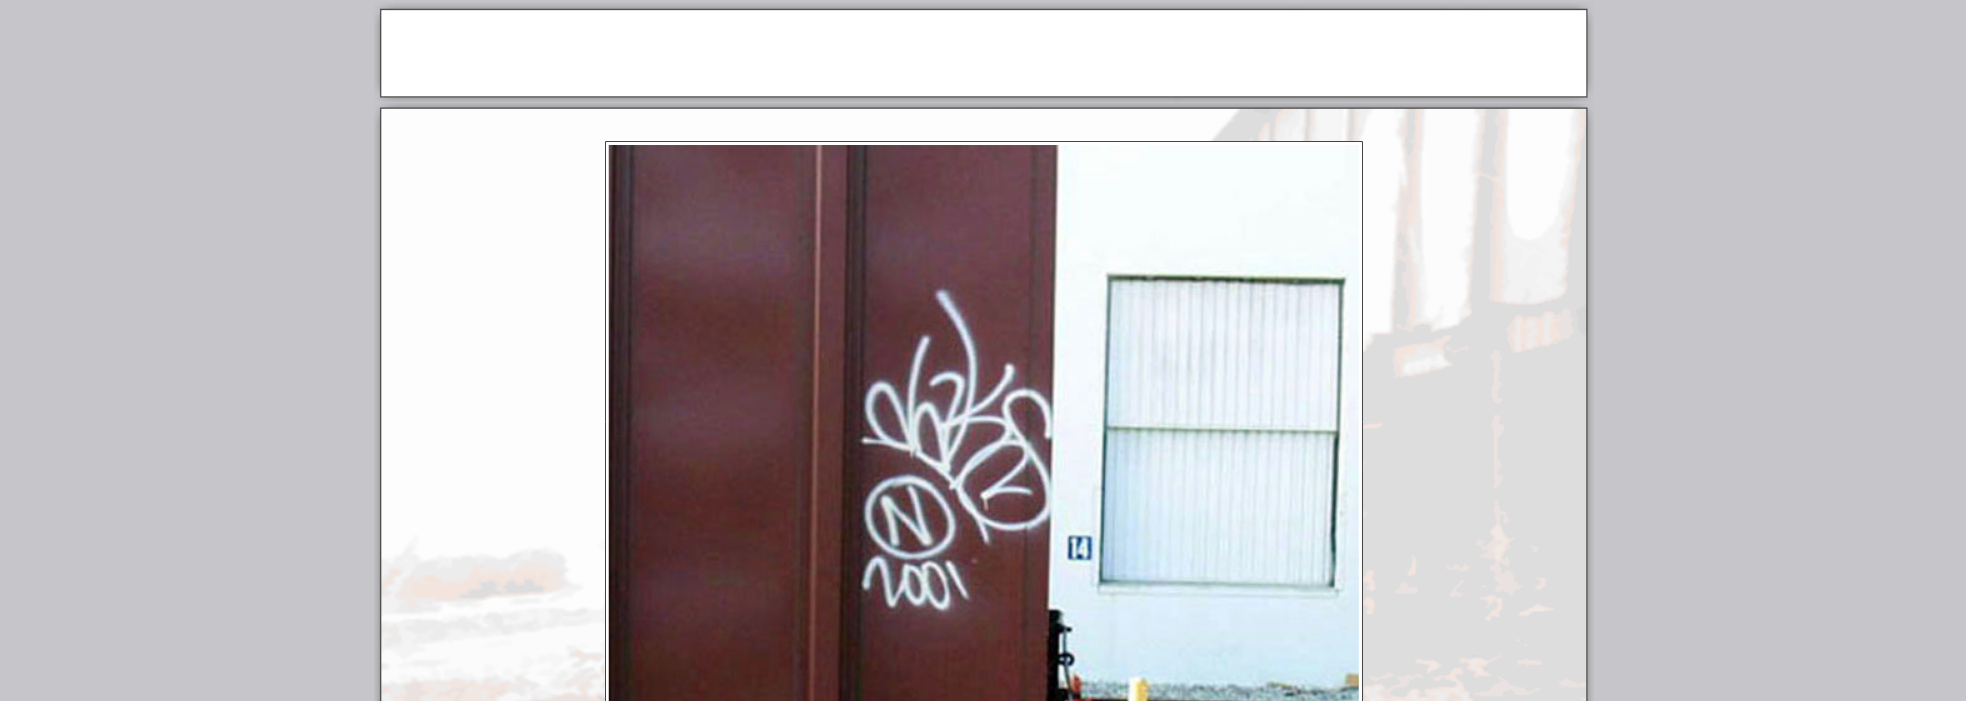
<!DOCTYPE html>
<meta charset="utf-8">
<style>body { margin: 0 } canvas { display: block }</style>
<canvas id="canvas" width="1966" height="701"></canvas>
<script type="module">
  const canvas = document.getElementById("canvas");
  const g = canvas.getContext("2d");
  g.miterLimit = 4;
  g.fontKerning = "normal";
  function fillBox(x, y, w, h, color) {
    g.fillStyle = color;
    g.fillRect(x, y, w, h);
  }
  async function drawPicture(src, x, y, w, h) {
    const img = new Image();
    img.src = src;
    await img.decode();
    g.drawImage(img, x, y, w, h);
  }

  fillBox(0, 0, 1966, 701, "#C6C6CA");
  await drawPicture("pic1.png", 374, 2, 1220, 101);
  await drawPicture("pic2.png", 374, 103, 1220, 598);
  g.fillStyle = "#FFFFFF";
  g.beginPath();
  g.rect(605.5, 141.5, 757, 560);
  g.fill();
  g.strokeStyle = "#444444";
  g.stroke();
  await drawPicture("pic3.png", 608, 145, 751, 556);
</script>
